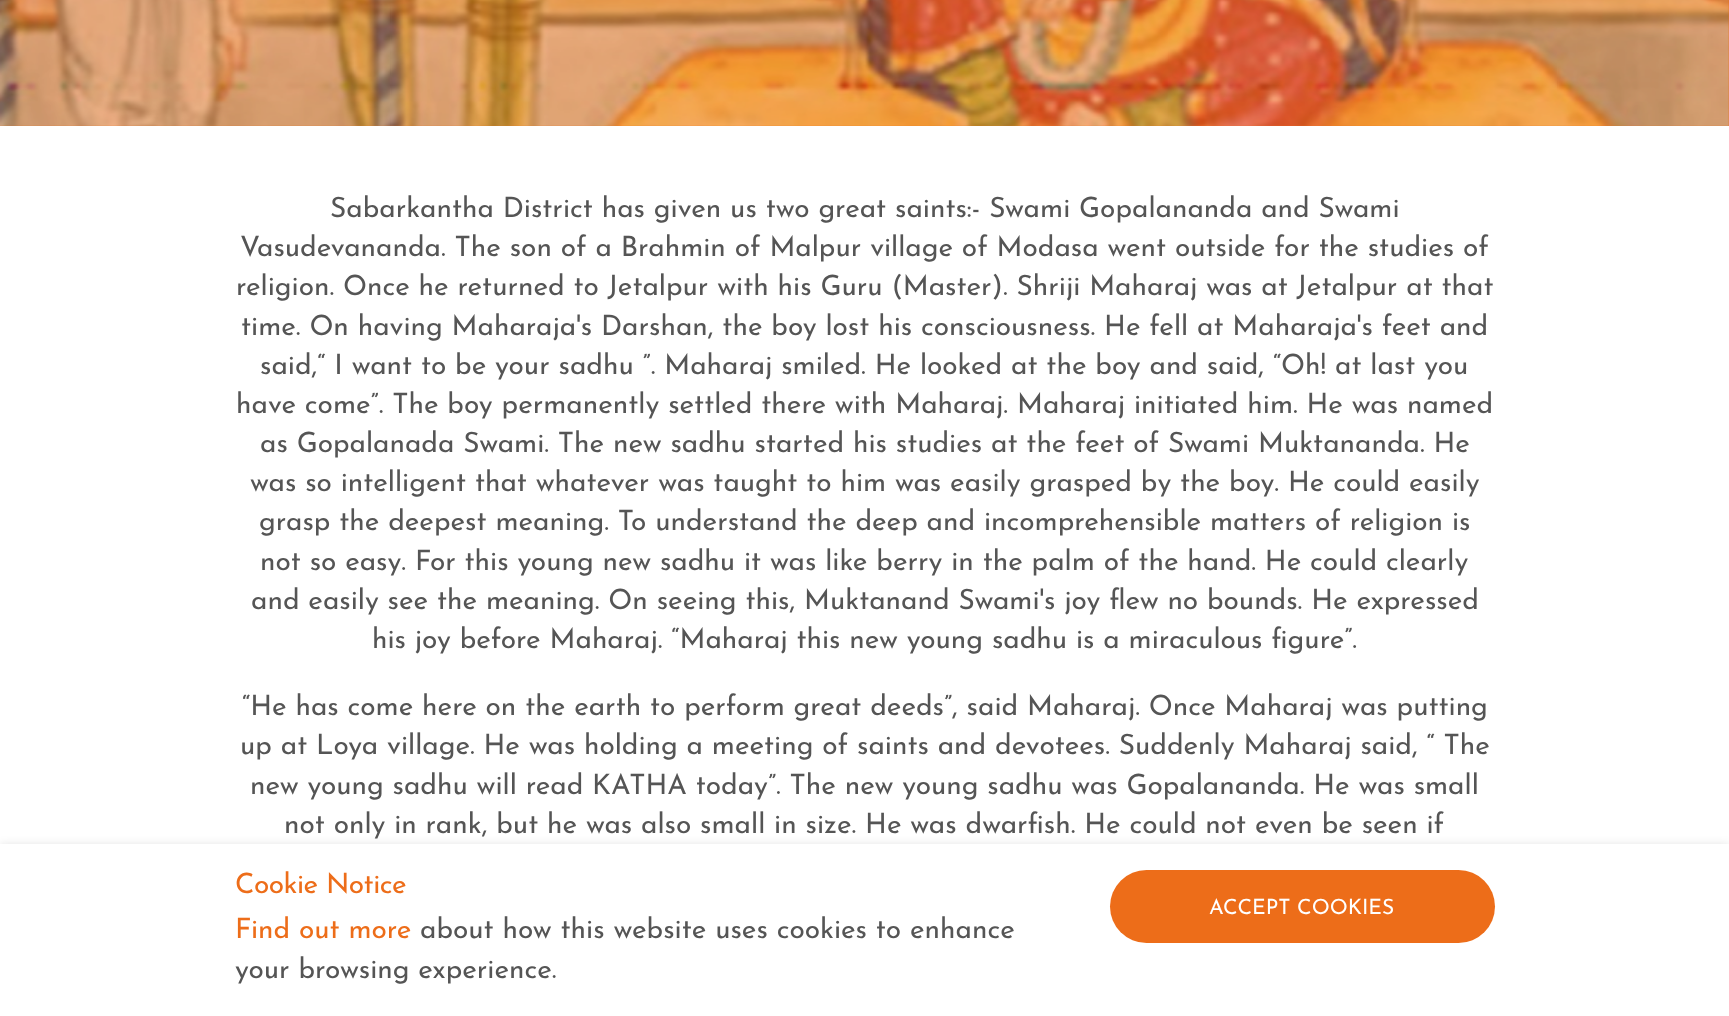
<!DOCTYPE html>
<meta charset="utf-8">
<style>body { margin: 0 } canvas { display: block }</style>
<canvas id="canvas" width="1729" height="1016"></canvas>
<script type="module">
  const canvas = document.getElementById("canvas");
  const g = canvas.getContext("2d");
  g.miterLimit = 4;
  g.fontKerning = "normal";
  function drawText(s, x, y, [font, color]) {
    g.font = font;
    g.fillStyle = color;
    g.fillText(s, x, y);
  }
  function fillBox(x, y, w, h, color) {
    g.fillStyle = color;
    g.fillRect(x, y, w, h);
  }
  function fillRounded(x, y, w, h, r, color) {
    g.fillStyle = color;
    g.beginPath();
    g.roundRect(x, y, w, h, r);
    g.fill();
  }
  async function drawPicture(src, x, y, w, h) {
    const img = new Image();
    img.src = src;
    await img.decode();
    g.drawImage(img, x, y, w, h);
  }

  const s1 = ["100 28px Josefin Sans", "#555555"];
  const s2 = ["100 28px Josefin Sans", "#ED6D19"];
  const s3 = ["100 21px Josefin Sans", "#FFFFFF"];

  fillBox(0, 0, 1729, 1016, "#FFFFFF");
  fillBox(0, 0, 1729, 126, "#ED6D19");
  await drawPicture("pic1.png", 0, 0, 1729, 126);
  drawText("Sabarkantha District has given us two great saints:- Swami Gopalananda and Swami", 330, 217, s1);
  drawText("Vasudevananda. The son of a Brahmin of Malpur village of Modasa went outside for the studies of", 240, 256, s1);
  drawText("religion. Once he returned to Jetalpur with his Guru (Master). Shriji Maharaj was at Jetalpur at that", 236, 295, s1);
  drawText("time. On having Maharaja's Darshan, the boy lost his consciousness. He fell at Maharaja's feet and", 241, 335, s1);
  drawText("said,“ I want to be your sadhu ”. Maharaj smiled. He looked at the boy and said, “Oh! at last you", 260, 374, s1);
  drawText("have come”. The boy permanently settled there with Maharaj. Maharaj initiated him. He was named", 236, 413, s1);
  drawText("as Gopalanada Swami. The new sadhu started his studies at the feet of Swami Muktananda. He", 260, 452, s1);
  drawText("was so intelligent that whatever was taught to him was easily grasped by the boy. He could easily", 250, 491, s1);
  drawText("grasp the deepest meaning. To understand the deep and incomprehensible matters of religion is", 259, 530, s1);
  drawText("not so easy. For this young new sadhu it was like berry in the palm of the hand. He could clearly", 260, 570, s1);
  drawText("and easily see the meaning. On seeing this, Muktanand Swami's joy flew no bounds. He expressed", 251, 609, s1);
  drawText("his joy before Maharaj. “Maharaj this new young sadhu is a miraculous figure”.", 372, 648, s1);
  drawText("“He has come here on the earth to perform great deeds”, said Maharaj. Once Maharaj was putting", 242, 715, s1);
  drawText("up at Loya village. He was holding a meeting of saints and devotees. Suddenly Maharaj said, “ The", 240, 754, s1);
  drawText("new young sadhu will read KATHA today”. The new young sadhu was Gopalananda. He was small", 250, 794, s1);
  drawText("not only in rank, but he was also small in size. He was dwarfish. He could not even be seen if", 284, 833, s1);
  g.fillStyle = "rgba(0, 0, 0, 0.1)";
  g.filter = "blur(4.5px)";
  g.beginPath();
  g.rect(0, 844, 1729, 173);
  g.fill();
  g.filter = "none";
  fillBox(0, 844, 1729, 172, "#FFFFFF");
  g.letterSpacing = "-0.5px";
  drawText("Cookie Notice", 235, 893, s2);
  g.letterSpacing = "0px";
  drawText("Find out more", 235, 938, s2);
  drawText("about how this website uses cookies to enhance", 420, 938, s1);
  drawText("your browsing experience.", 235, 978, s1);
  fillRounded(1110, 870, 385, 73, 36.5, "#ED6D19");
  drawText("ACCEPT COOKIES", 1209, 914, s3);
</script>
